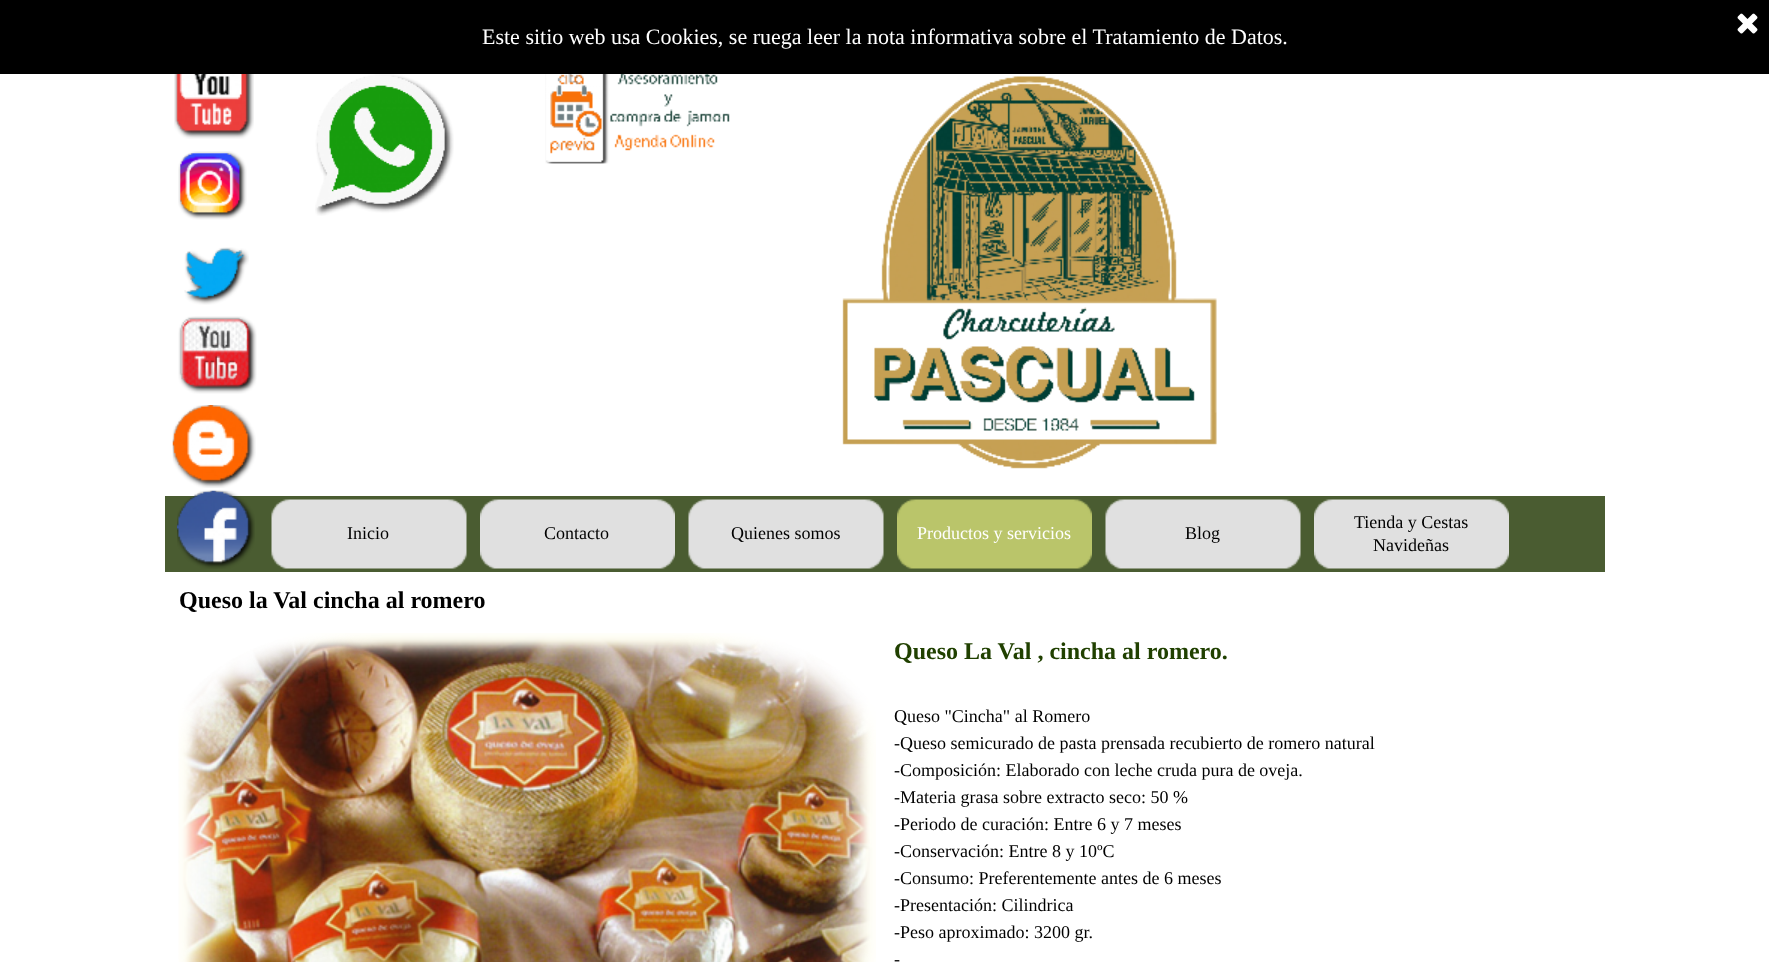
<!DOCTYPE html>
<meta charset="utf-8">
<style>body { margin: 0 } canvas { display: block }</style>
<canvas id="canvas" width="1769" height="962"></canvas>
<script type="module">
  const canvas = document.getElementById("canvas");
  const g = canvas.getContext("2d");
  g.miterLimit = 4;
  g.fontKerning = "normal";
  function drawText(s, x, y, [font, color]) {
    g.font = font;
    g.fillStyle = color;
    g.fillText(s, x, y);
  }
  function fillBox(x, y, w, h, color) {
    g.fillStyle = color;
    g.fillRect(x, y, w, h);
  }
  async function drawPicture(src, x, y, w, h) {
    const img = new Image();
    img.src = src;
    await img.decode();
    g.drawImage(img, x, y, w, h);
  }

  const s1 = ["22px Liberation Serif", "#FFFFFF"];
  const s2 = ["18px Liberation Serif", "#000000"];
  const s3 = ["18px Liberation Serif", "#FFFFFF"];
  const s4 = ["bold 24px Liberation Serif", "#000000"];
  const s5 = ["bold 24px Liberation Serif", "#204000"];

  fillBox(0, 0, 1769, 962, "#FFFFFF");
  fillBox(0, 0, 1769, 74, "#000000");
  await drawPicture("pic1.png", 1737, 13, 21, 21);
  drawText("Este sitio web usa Cookies, se ruega leer la nota informativa sobre el Tratamiento de Datos.", 482, 44, s1);
  fillBox(165, 496, 1440, 76, "#4A5C31");
  await drawPicture("pic2.png", 174, 74, 80, 65);
  await drawPicture("pic3.png", 315, 74, 139, 142);
  await drawPicture("pic4.png", 545, 74, 185, 90);
  await drawPicture("pic5.png", 842, 76, 375, 393);
  await drawPicture("pic6.png", 178, 151, 69, 69);
  await drawPicture("pic7.png", 184, 247, 65, 58);
  await drawPicture("pic8.png", 178, 316, 79, 78);
  await drawPicture("pic9.png", 172, 405, 84, 83);
  await drawPicture("pic10.png", 177, 490, 78, 79);
  await drawPicture("pic11.png", 271, 499, 196, 70);
  drawText("Inicio", 347, 539, s2);
  await drawPicture("pic12.png", 480, 499, 195, 70);
  drawText("Contacto", 544, 539, s2);
  await drawPicture("pic13.png", 688, 499, 196, 70);
  drawText("Quienes somos", 731, 539, s2);
  await drawPicture("pic14.png", 897, 499, 195, 70);
  drawText("Productos y servicios", 917, 539, s3);
  await drawPicture("pic11.png", 1105, 499, 196, 70);
  drawText("Blog", 1185, 539, s2);
  await drawPicture("pic15.png", 1314, 499, 195, 70);
  drawText("Tienda y Cestas", 1354, 528, s2);
  drawText("Navideñas", 1373, 551, s2);
  drawText("Queso la Val cincha al romero", 179, 608, s4);
  await drawPicture("pic16.png", 178, 633, 698, 329);
  drawText("Queso La Val , cincha al romero.", 894, 659, s5);
  drawText("Queso \"Cincha\" al Romero", 894, 722, s2);
  drawText("-Queso semicurado de pasta prensada recubierto de romero natural", 894, 749, s2);
  drawText("-Composición: Elaborado con leche cruda pura de oveja.", 894, 776, s2);
  drawText("-Materia grasa sobre extracto seco: 50 %", 894, 803, s2);
  drawText("-Periodo de curación: Entre 6 y 7 meses", 894, 830, s2);
  drawText("-Conservación: Entre 8 y 10ºC", 894, 857, s2);
  drawText("-Consumo: Preferentemente antes de 6 meses", 894, 884, s2);
  drawText("-Presentación: Cilindrica", 894, 911, s2);
  drawText("-Peso aproximado: 3200 gr.", 894, 938, s2);
  drawText("-", 894, 965, s2);
</script>
